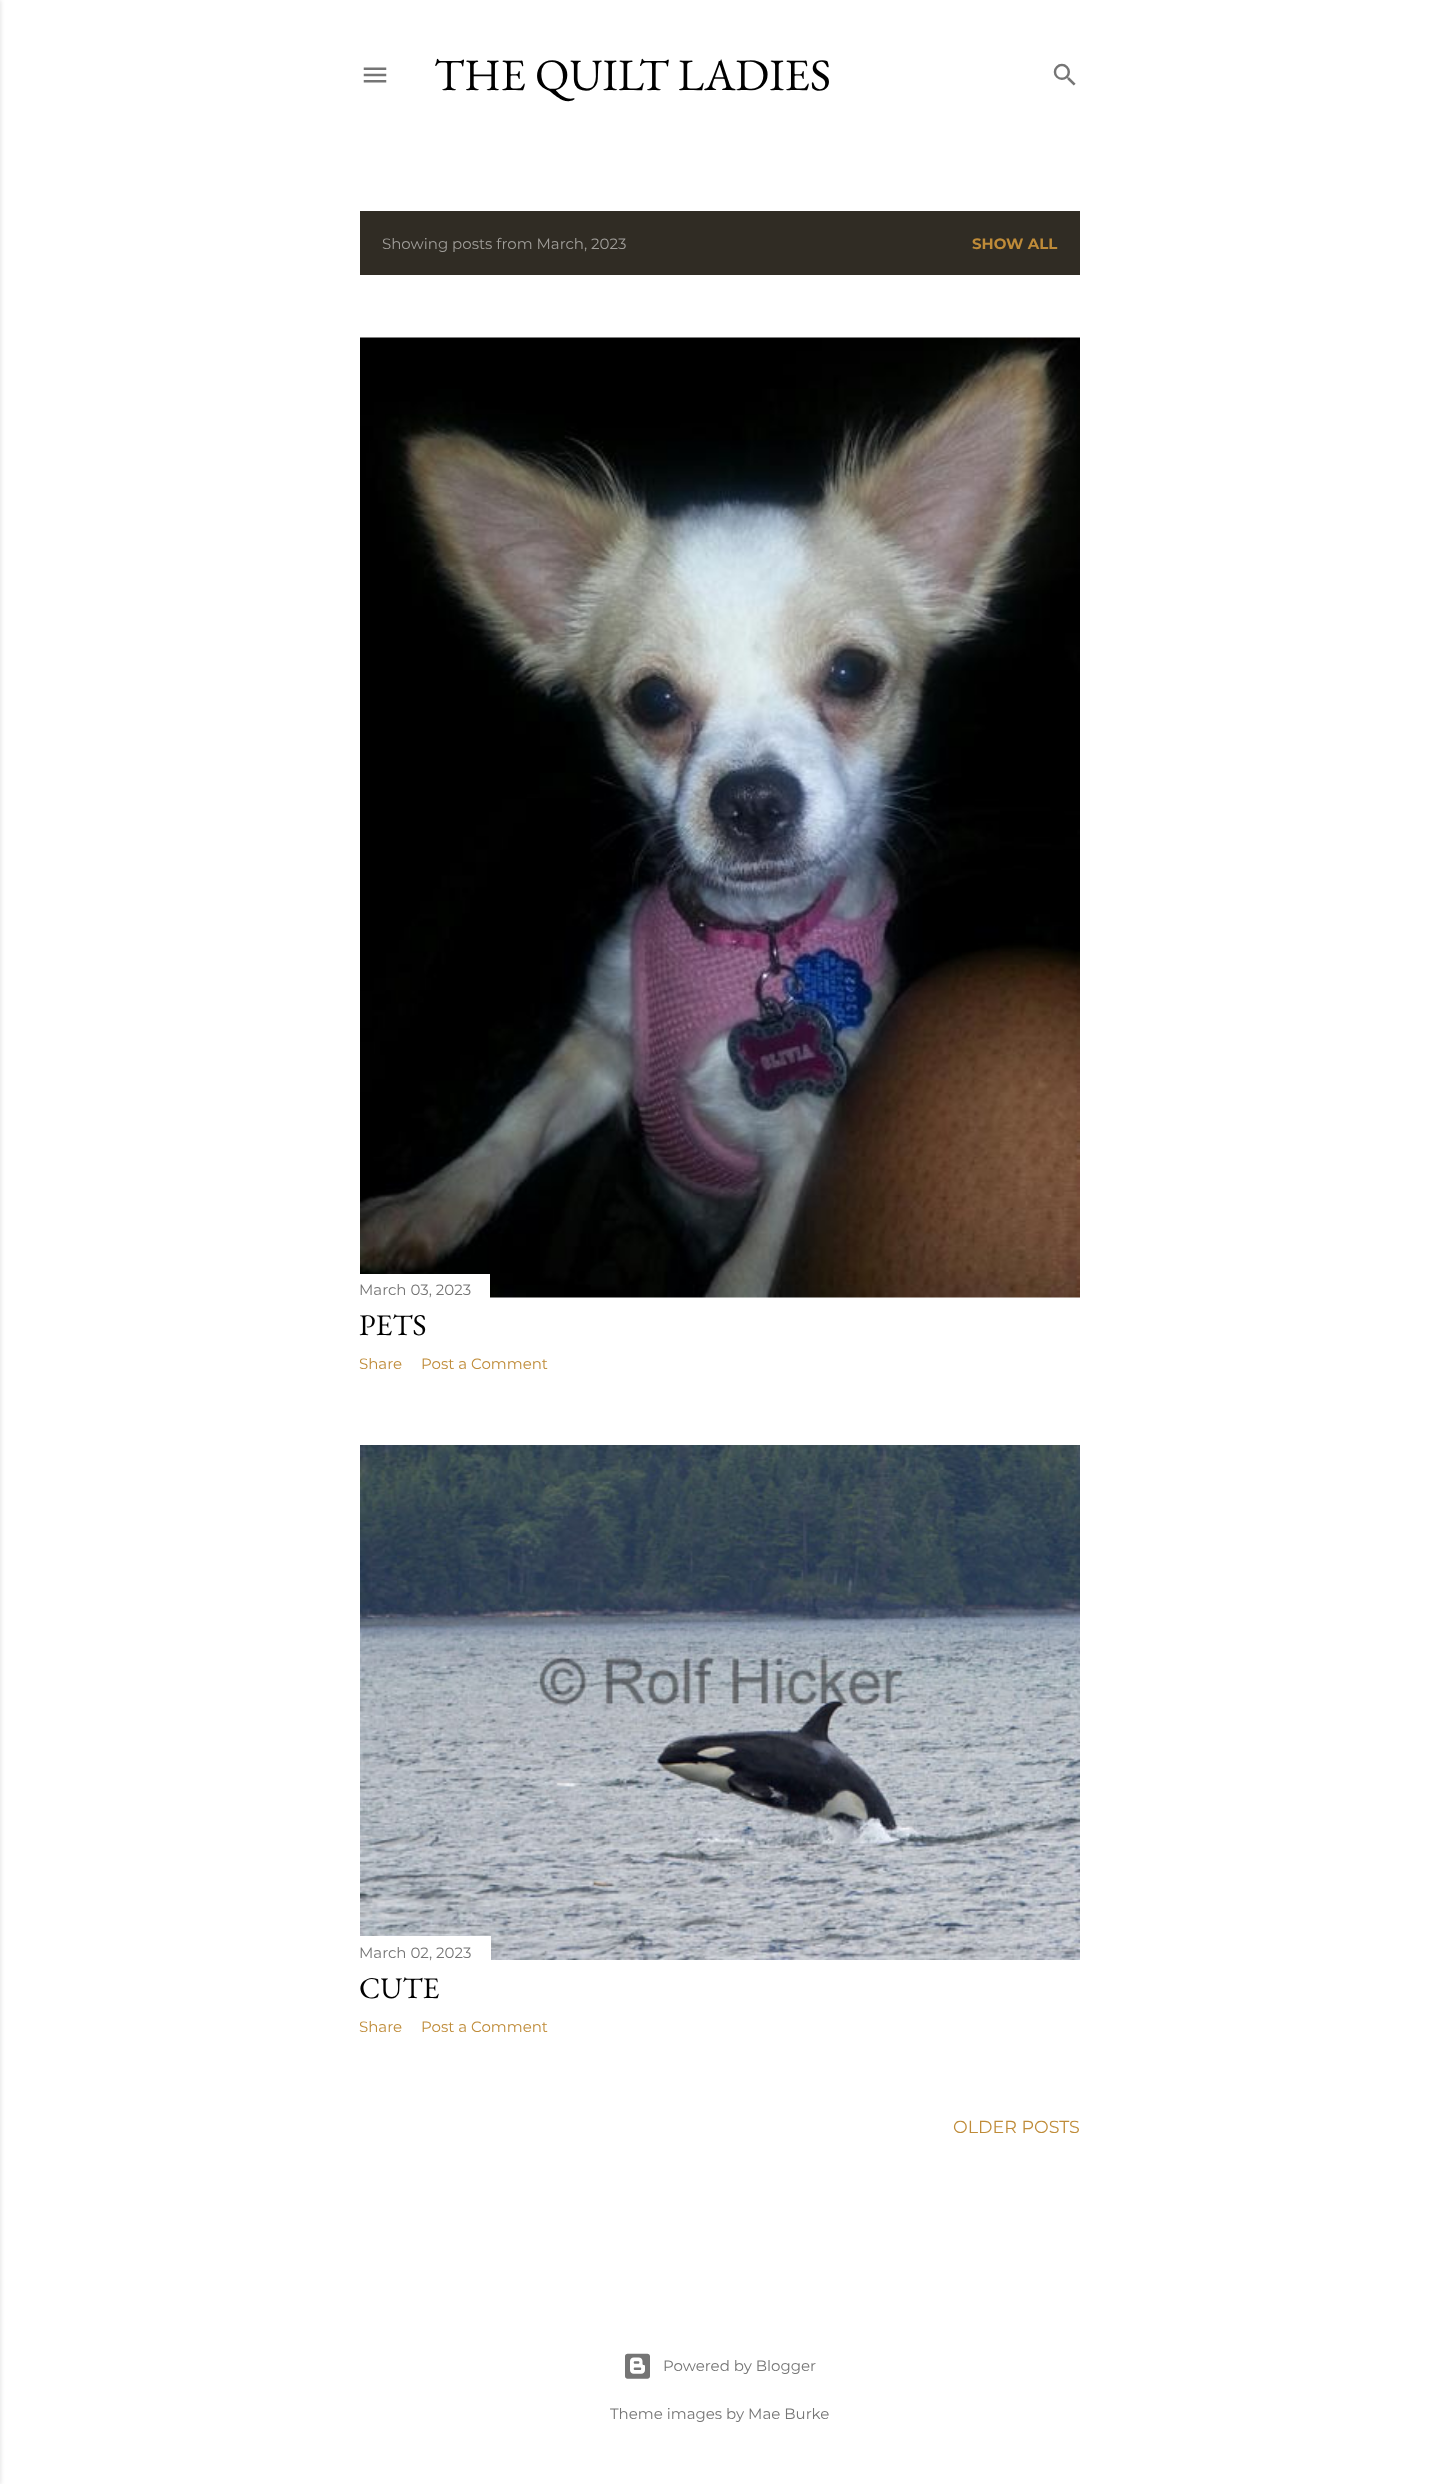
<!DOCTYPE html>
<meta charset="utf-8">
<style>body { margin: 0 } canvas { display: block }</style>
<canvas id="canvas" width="1438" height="2484"></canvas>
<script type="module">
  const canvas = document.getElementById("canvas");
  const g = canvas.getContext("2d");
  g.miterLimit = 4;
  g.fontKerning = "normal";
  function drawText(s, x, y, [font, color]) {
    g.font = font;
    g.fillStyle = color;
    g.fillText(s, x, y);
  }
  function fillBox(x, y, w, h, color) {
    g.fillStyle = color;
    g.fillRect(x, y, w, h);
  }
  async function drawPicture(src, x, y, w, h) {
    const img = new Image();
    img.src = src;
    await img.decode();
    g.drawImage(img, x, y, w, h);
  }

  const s1 = ["45px EB Garamond", "#000000"];
  const s2 = ["15px Montserrat", "#A09E9A"];
  const s3 = ["bold 15px Montserrat", "#BF8B38"];
  const s4 = ["15px Montserrat", "#757575"];
  const s5 = ["30px EB Garamond", "#000000"];
  const s6 = ["15px Montserrat", "#BF8B38"];
  const s7 = ["17.5px Montserrat", "#BF8B38"];

  fillBox(0, 0, 1438, 2484, "#FFFFFF");
  g.fillStyle = "rgba(0, 0, 0, 0.1)";
  g.filter = "blur(2px)";
  g.beginPath();
  g.rect(-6, 0, 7, 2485);
  g.fill();
  g.filter = "none";
  await drawPicture("pic1.png", 363, 67, 24, 16);
  drawText("THE QUILT LADIES", 434, 90, s1);
  await drawPicture("pic2.png", 1053, 63, 23, 23);
  fillBox(360, 211, 720, 64, "#302C24");
  drawText("Showing posts from March, 2023", 382, 249, s2);
  drawText("SHOW ALL", 972, 249, s3);
  await drawPicture("pic3.png", 360, 337, 720, 961);
  fillBox(360, 1274, 130, 24, "#FFFFFF");
  drawText("March 03, 2023", 359, 1295, s4);
  drawText("PETS", 359, 1335, s5);
  drawText("Share", 359, 1369, s6);
  drawText("Post a Comment", 421, 1369, s6);
  await drawPicture("pic4.png", 360, 1445, 720, 515);
  fillBox(360, 1936, 131, 24, "#FFFFFF");
  drawText("March 02, 2023", 359, 1958, s4);
  drawText("CUTE", 359, 1998, s5);
  drawText("Share", 359, 2032, s6);
  drawText("Post a Comment", 421, 2032, s6);
  drawText("OLDER POSTS", 953, 2133, s7);
  await drawPicture("pic5.png", 625, 2353, 25, 26);
  drawText("Powered by Blogger", 663, 2371, s4);
  drawText("Theme images by Mae Burke", 610, 2419, s4);
</script>
